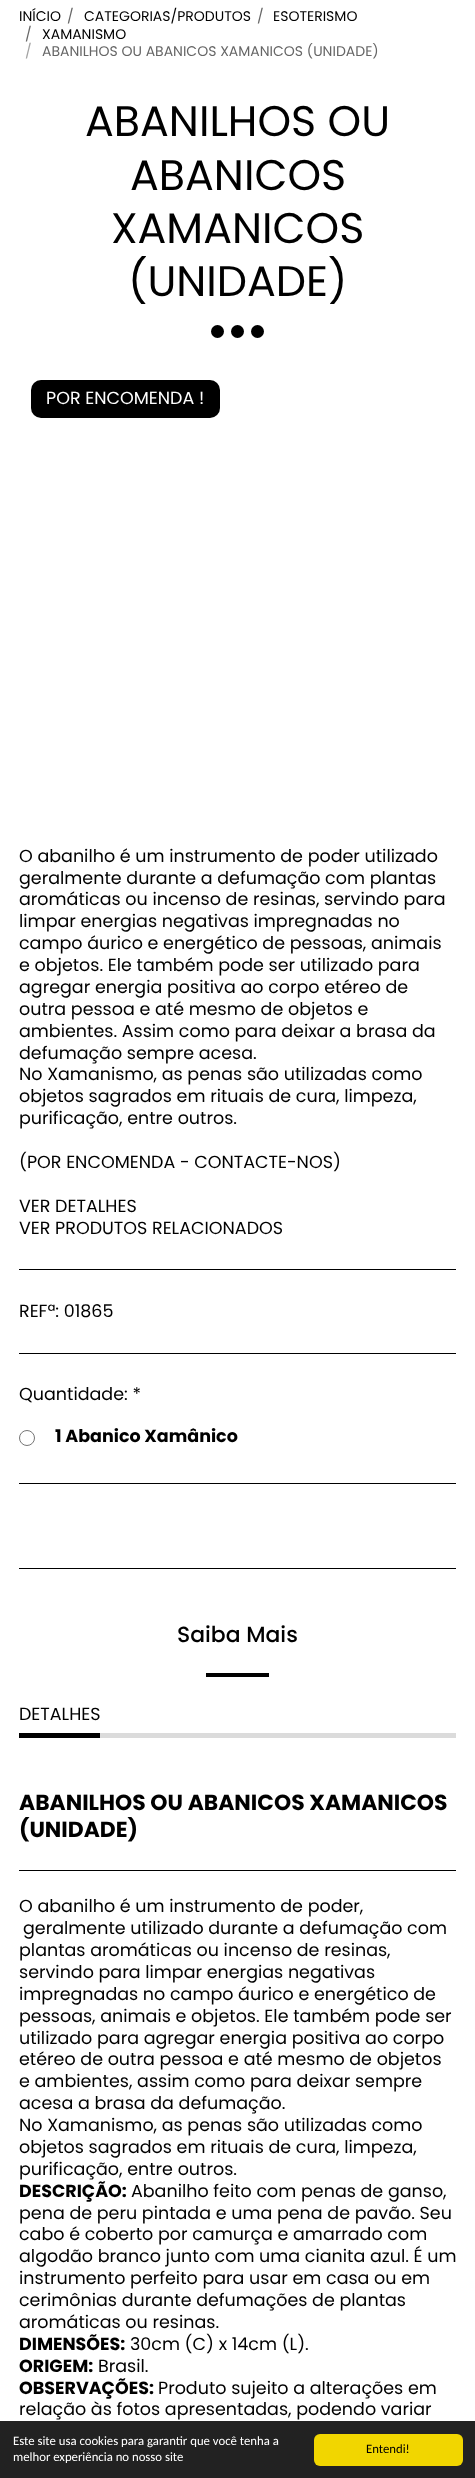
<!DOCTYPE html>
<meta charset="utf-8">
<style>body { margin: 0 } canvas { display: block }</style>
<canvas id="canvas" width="475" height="2478"></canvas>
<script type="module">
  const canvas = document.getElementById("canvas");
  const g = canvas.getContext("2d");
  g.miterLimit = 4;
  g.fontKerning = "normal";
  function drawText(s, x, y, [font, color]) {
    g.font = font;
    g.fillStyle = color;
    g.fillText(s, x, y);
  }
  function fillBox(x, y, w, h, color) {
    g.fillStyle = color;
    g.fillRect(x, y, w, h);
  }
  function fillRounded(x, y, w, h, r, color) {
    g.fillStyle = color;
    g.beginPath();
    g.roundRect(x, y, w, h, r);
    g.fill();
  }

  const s1 = ["14px Poppins", "#000000"];
  const s2 = ["14px Poppins", "#666666"];
  const s3 = ["14px Poppins", "#A3A3A3"];
  const s4 = ["42.75px Poppins", "#000000"];
  const s5 = ["17.5px Poppins", "#FFFFFF"];
  const s6 = ["17.5px Poppins", "#000000"];
  const s7 = ["bold 17.5px Poppins", "#000000"];
  const s8 = ["500 21.9px Poppins", "#000000"];
  const s9 = ["bold 21.9px Poppins", "#000000"];
  const s10 = ["12.75px Carlito", "#FFFFFF"];
  const s11 = ["12.75px Carlito", "#000000"];

  fillBox(0, 0, 475, 2478, "#FFFFFF");
  drawText("INÍCIO", 19, 21, s1);
  drawText("/", 67, 21, s2);
  drawText("CATEGORIAS/PRODUTOS", 84, 21, s1);
  drawText("/", 257, 21, s2);
  drawText("ESOTERISMO", 273, 21, s1);
  drawText("/", 25, 39, s2);
  drawText("XAMANISMO", 42, 39, s1);
  drawText("/", 25, 56, s3);
  drawText("ABANILHOS OU ABANICOS XAMANICOS (UNIDADE)", 42, 56, s2);
  drawText("ABANILHOS OU", 85, 136, s4);
  drawText("ABANICOS", 130, 190, s4);
  drawText("XAMANICOS", 111, 243, s4);
  drawText("(UNIDADE)", 128, 296, s4);
  g.beginPath();
  g.arc(217.5, 331.5, 6.5, 0, Math.PI * 2);
  g.fill();
  g.beginPath();
  g.arc(237.5, 331.5, 6.5, 0, Math.PI * 2);
  g.fill();
  g.beginPath();
  g.arc(257.5, 331.5, 6.5, 0, Math.PI * 2);
  g.fill();
  fillRounded(31, 380, 189, 38, 10, "#000000");
  drawText("POR ENCOMENDA !", 46, 404, s5);
  drawText("O abanilho é um instrumento de poder utilizado", 19, 862, s6);
  drawText("geralmente durante a defumação com plantas", 19, 884, s6);
  drawText("aromáticas ou incenso de resinas, servindo para", 19, 905, s6);
  drawText("limpar energias negativas impregnadas no", 19, 927, s6);
  drawText("campo áurico e energético de pessoas, animais", 19, 949, s6);
  drawText("e objetos. Ele também pode ser utilizado para", 19, 971, s6);
  drawText("agregar energia positiva ao corpo etéreo de", 19, 993, s6);
  drawText("outra pessoa e até mesmo de objetos e", 19, 1015, s6);
  drawText("ambientes. Assim como para deixar a brasa da", 19, 1037, s6);
  drawText("defumação sempre acesa.", 19, 1059, s6);
  drawText("No Xamanismo, as penas são utilizadas como", 19, 1080, s6);
  drawText("objetos sagrados em rituais de cura, limpeza,", 19, 1102, s6);
  drawText("purificação, entre outros.", 19, 1124, s6);
  drawText("(POR ENCOMENDA - CONTACTE-NOS)", 19, 1168, s6);
  drawText("VER DETALHES", 19, 1212, s6);
  drawText("VER PRODUTOS RELACIONADOS", 19, 1234, s6);
  fillBox(19, 1269, 437, 1, "#000000");
  drawText("REFª: 01865", 19, 1317, s6);
  fillBox(19, 1353, 437, 1, "#000000");
  drawText("Quantidade: *", 19, 1400, s6);
  g.beginPath();
  g.arc(27, 1438, 7.5, 0, Math.PI * 2);
  g.strokeStyle = "#767676";
  g.stroke();
  drawText("1 Abanico Xamânico", 55, 1442, s7);
  fillBox(19, 1483, 437, 1, "#000000");
  fillBox(19, 1568, 437, 1, "#000000");
  drawText("Saiba Mais", 177, 1642, s8);
  fillBox(206, 1673, 63, 4, "#000000");
  fillBox(100, 1733, 356, 5, "#DBDBDB");
  fillBox(19, 1733, 81, 5, "#000000");
  drawText("DETALHES", 19, 1720, s6);
  drawText("ABANILHOS OU ABANICOS XAMANICOS", 19, 1810, s9);
  drawText("(UNIDADE)", 19, 1837, s9);
  fillBox(19, 1870, 437, 1, "#000000");
  drawText("O abanilho é um instrumento de poder,", 19, 1912, s6);
  drawText("geralmente utilizado durante a defumação com", 23, 1934, s6);
  drawText("plantas aromáticas ou incenso de resinas,", 19, 1956, s6);
  drawText("servindo para limpar energias negativas", 19, 1978, s6);
  drawText("impregnadas no campo áurico e energético de", 19, 2000, s6);
  drawText("pessoas, animais e objetos. Ele também pode ser", 19, 2022, s6);
  drawText("utilizado para agregar energia positiva ao corpo", 19, 2044, s6);
  drawText("etéreo de outra pessoa e até mesmo de objetos", 19, 2065, s6);
  drawText("e ambientes, assim como para deixar sempre", 19, 2087, s6);
  drawText("acesa a brasa da defumação.", 19, 2109, s6);
  drawText("No Xamanismo, as penas são utilizadas como", 19, 2131, s6);
  drawText("objetos sagrados em rituais de cura, limpeza,", 19, 2153, s6);
  drawText("purificação, entre outros.", 19, 2175, s6);
  drawText("DESCRIÇÃO:", 19, 2197, s7);
  drawText("Abanilho feito com penas de ganso,", 131, 2197, s6);
  drawText("pena de peru pintada e uma pena de pavão. Seu", 19, 2219, s6);
  drawText("cabo é coberto por camurça e amarrado com", 19, 2240, s6);
  drawText("algodão branco junto com uma cianita azul. É um", 19, 2262, s6);
  drawText("instrumento perfeito para usar em casa ou em", 19, 2284, s6);
  drawText("cerimônias durante defumações de plantas", 19, 2306, s6);
  drawText("aromáticas ou resinas.", 19, 2328, s6);
  drawText("DIMENSÕES:", 19, 2350, s7);
  drawText("30cm (C) x 14cm (L).", 130, 2350, s6);
  drawText("ORIGEM:", 19, 2372, s7);
  drawText("Brasil.", 98, 2372, s6);
  drawText("OBSERVAÇÕES:", 19, 2394, s7);
  drawText("Produto sujeito a alterações em", 158, 2394, s6);
  drawText("relação às fotos apresentadas, podendo variar", 19, 2415, s6);
  fillBox(0, 2421, 475, 57, "#222222");
  drawText("Este site usa cookies para garantir que você tenha a", 13, 2445, s10);
  drawText("melhor experiência no nosso site", 13, 2461, s10);
  fillRounded(314, 2434, 149, 32, 6, "#F1D600");
  drawText("Entendi!", 366, 2453, s11);
</script>
